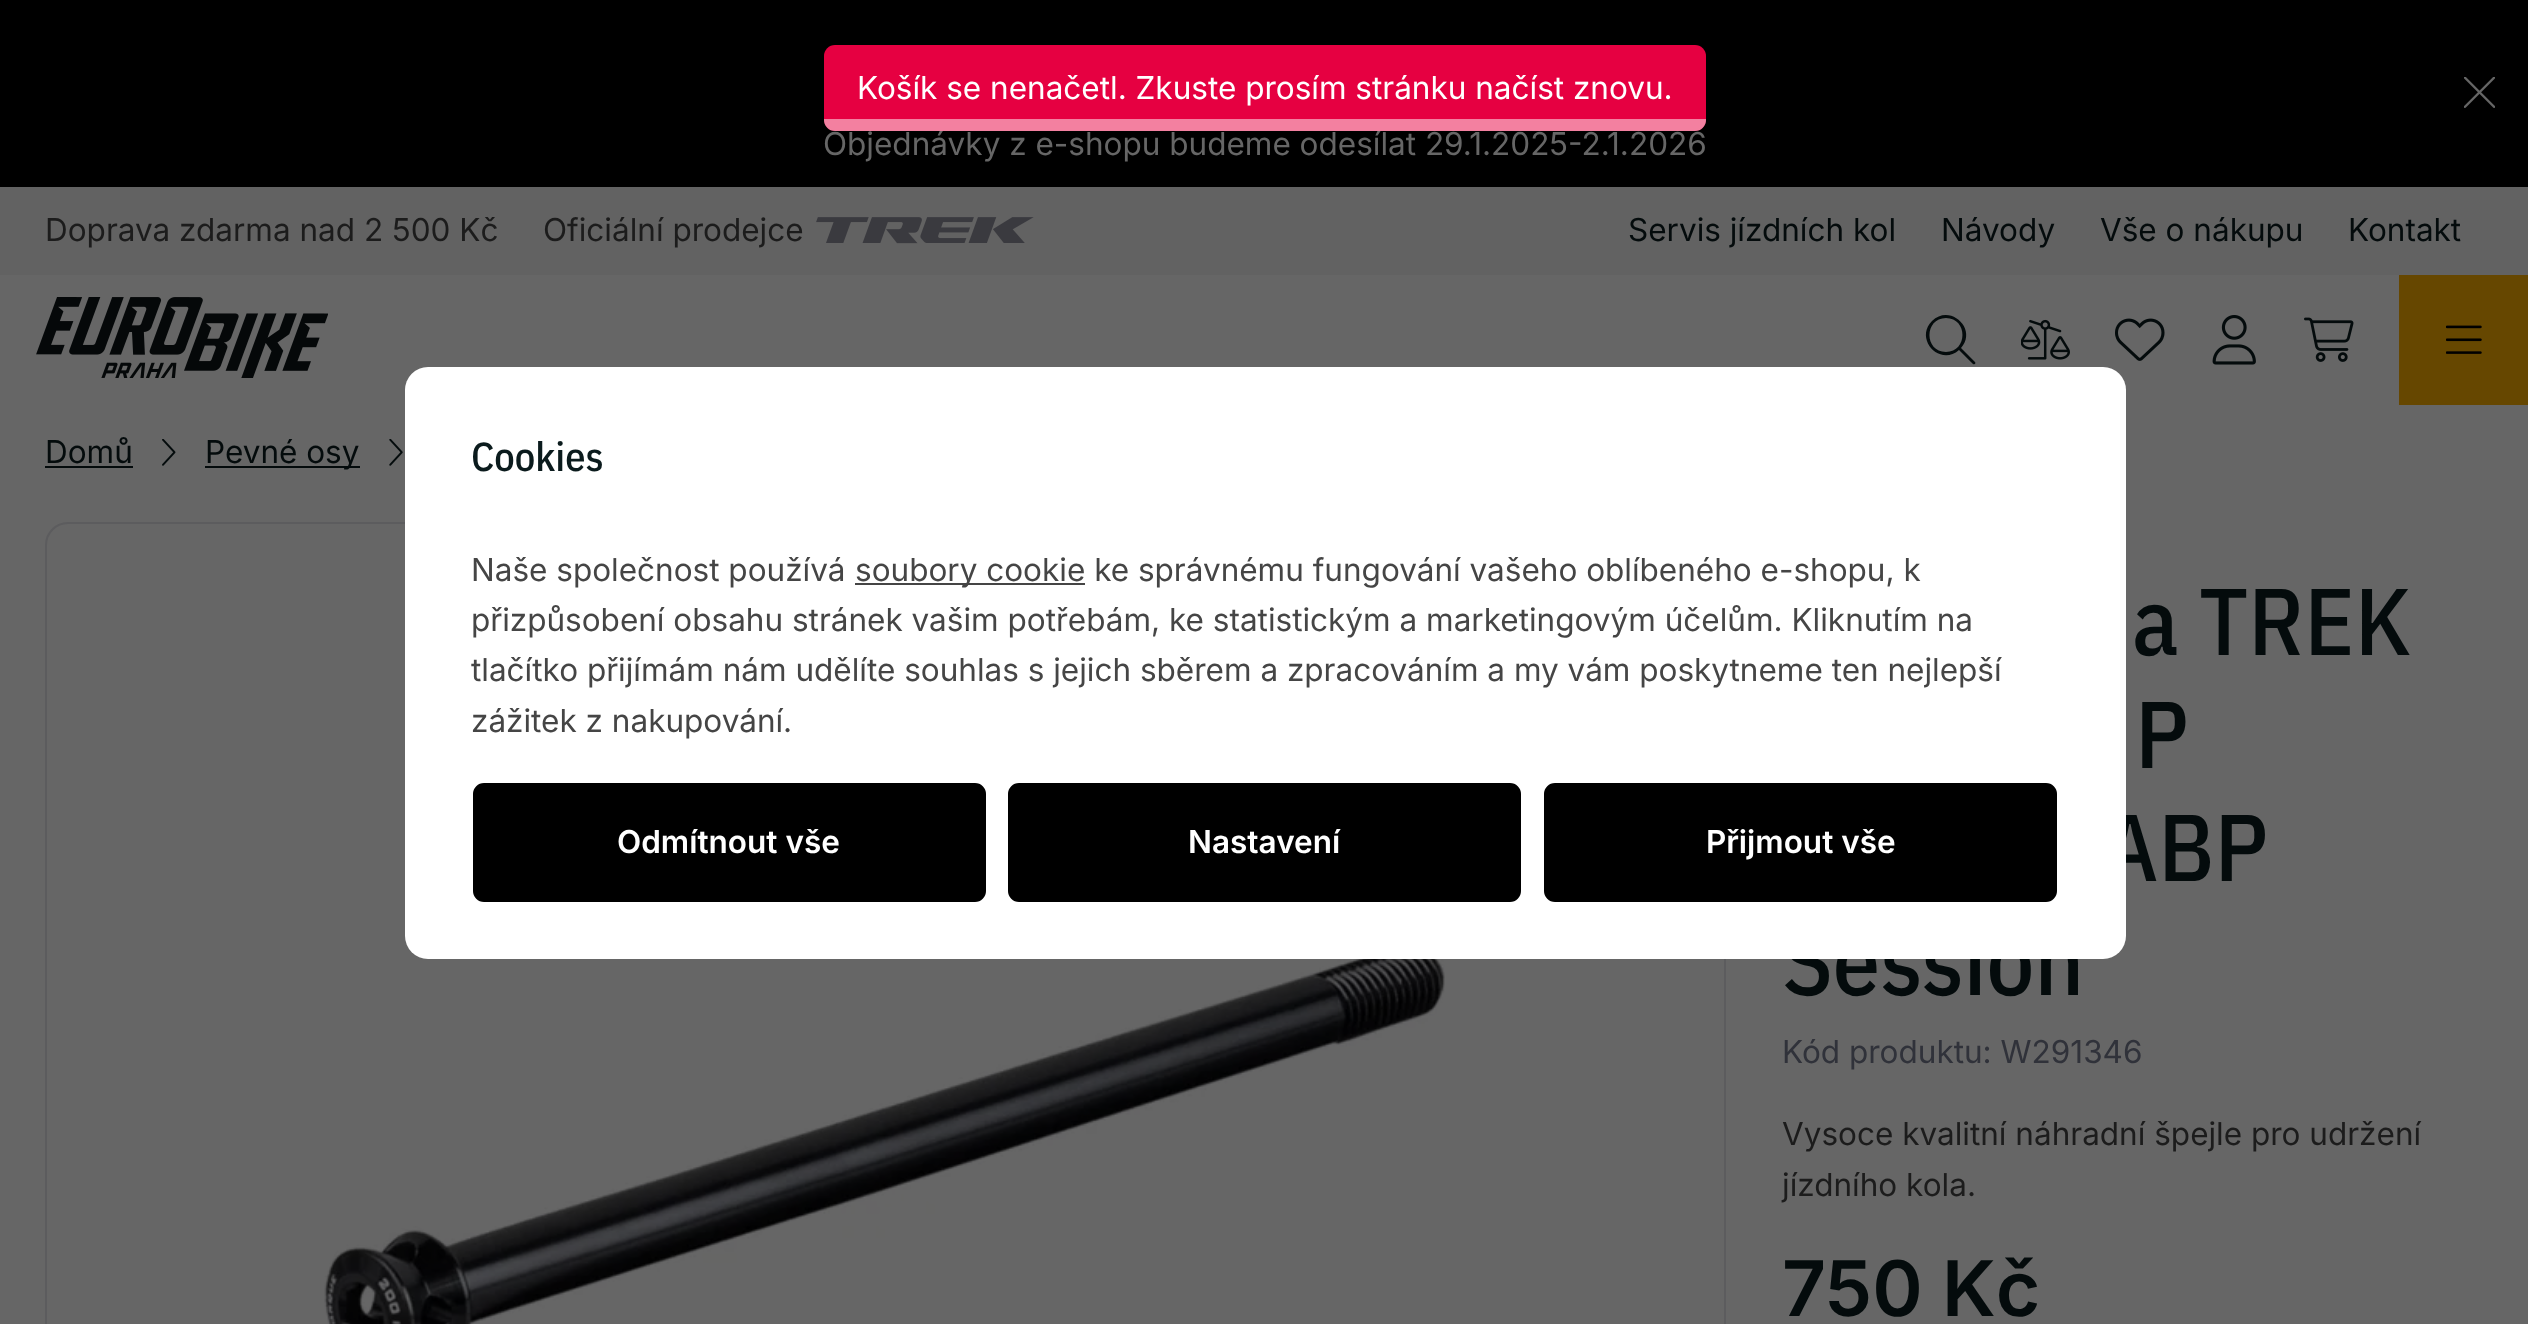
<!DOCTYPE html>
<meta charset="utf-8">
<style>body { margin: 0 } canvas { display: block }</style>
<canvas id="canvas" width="2528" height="1324"></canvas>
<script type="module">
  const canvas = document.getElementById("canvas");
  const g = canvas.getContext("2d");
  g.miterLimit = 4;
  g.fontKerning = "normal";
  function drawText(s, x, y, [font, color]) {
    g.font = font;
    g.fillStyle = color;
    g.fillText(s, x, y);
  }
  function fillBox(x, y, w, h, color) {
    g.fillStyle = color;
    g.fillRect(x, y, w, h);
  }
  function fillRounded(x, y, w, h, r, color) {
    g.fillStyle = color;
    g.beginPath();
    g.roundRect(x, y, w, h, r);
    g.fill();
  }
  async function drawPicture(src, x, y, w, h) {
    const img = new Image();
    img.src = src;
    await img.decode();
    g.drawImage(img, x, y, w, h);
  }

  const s1 = ["31.5px Inter", "#FFFFFF"];
  const s2 = ["31.5px Inter", "#666666"];
  const s3 = ["31.5px Inter", "#1C1C1C"];
  const s4 = ["31.5px Inter", "#040B0C"];
  const s5 = ["500 94.5px IBM Plex Sans Condensed", "#040B0C"];
  const s6 = ["500 40.5px IBM Plex Sans Condensed", "#0B1B1D"];
  const s7 = ["31.5px Inter", "#454545"];
  const s8 = ["600 31.5px Inter", "#FFFFFF"];
  const s9 = ["31.5px Inter", "#30323A"];
  const s10 = ["600 76.5px Inter", "#040B0C"];

  fillBox(0, 0, 2528, 1324, "#666666");
  fillBox(0, 0, 2528, 187, "#000000");
  fillRounded(824, 45, 882, 86, 11, "#E60041");
  drawText("Košík se nenačetl. Zkuste prosím stránku načíst znovu.", 857, 99, s1);
  g.fillStyle = "rgba(255, 255, 255, 0.5)";
  g.beginPath();
  g.roundRect(824, 119, 882, 12, [0, 0, 11, 11]);
  g.fill();
  await drawPicture("pic1.png", 2464, 77, 31, 31);
  drawText("Objednávky z e-shopu budeme odesílat 29.1.2025-2.1.2026", 823, 155, s2);
  fillBox(0, 187, 2528, 88, "#626262");
  drawText("Doprava zdarma nad 2 500 Kč", 45, 241, s3);
  drawText("Oficiální prodejce", 543, 241, s3);
  await drawPicture("pic2.png", 816, 217, 218, 27);
  drawText("Servis jízdních kol", 1628, 241, s4);
  drawText("Návody", 1941, 241, s4);
  drawText("Vše o nákupu", 2100, 241, s4);
  drawText("Kontakt", 2348, 241, s4);
  await drawPicture("pic3.png", 36, 297, 292, 81);
  g.beginPath();
  g.moveTo(1975, 362);
  g.lineTo(1961, 348);
  g.bezierCurveTo(1978, 329, 1950, 303, 1932, 321);
  g.bezierCurveTo(1914, 339, 1940, 367, 1959, 350);
  g.lineTo(1973, 364);
  g.bezierCurveTo(1975, 365, 1976, 363, 1975, 362);
  g.closePath();
  g.moveTo(1946, 352);
  g.bezierCurveTo(1924, 352, 1924, 318, 1946, 318);
  g.bezierCurveTo(1968, 318, 1968, 352, 1946, 352);
  g.closePath();
  g.fill();
  await drawPicture("pic4.png", 2021, 319, 49, 41);
  await drawPicture("pic5.png", 2115, 318, 50, 43);
  await drawPicture("pic6.png", 2212, 315, 44, 50);
  await drawPicture("pic7.png", 2304, 317, 50, 45);
  fillBox(2399, 275, 129, 130, "#664700");
  await drawPicture("pic8.png", 2446, 325, 36, 29);
  drawText("Domů", 45, 463, s4);
  fillBox(45, 466, 88, 2, "#040B0C");
  await drawPicture("pic9.png", 162, 439, 14, 27);
  fillBox(205, 466, 155, 2, "#040B0C");
  drawText("Pevné osy", 205, 463, s4);
  await drawPicture("pic10.png", 389, 439, 14, 27);
  g.beginPath();
  g.roundRect(46, 523, 1679, 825, 22);
  g.strokeStyle = "#5C5C5E";
  g.lineWidth = 2;
  g.stroke();
  await drawPicture("pic11.png", 324, 943, 1121, 381);
  drawText("ABP", 2102, 881, s5);
  drawText("Session", 1782, 995, s5);
  fillRounded(405, 367, 1721, 592, 23, "#FFFFFF");
  drawText("Cookies", 471, 471, s6);
  drawText("Naše společnost používá", 471, 581, s7);
  fillBox(855, 583, 230, 2, "#454545");
  drawText("soubory cookie ke správnému fungování vašeho oblíbeného e-shopu, k", 855, 581, s7);
  drawText("přizpůsobení obsahu stránek vašim potřebám, ke statistickým a marketingovým účelům. Kliknutím na", 471, 631, s7);
  drawText("tlačítko přijímám nám udělíte souhlas s jejich sběrem a zpracováním a my vám poskytneme ten nejlepší", 471, 681, s7);
  drawText("zážitek z nakupování.", 471, 732, s7);
  g.fillStyle = "#000000";
  g.beginPath();
  g.roundRect(474, 784, 511, 117, 10);
  g.fill();
  g.strokeStyle = "#000000";
  g.stroke();
  drawText("Odmítnout vše", 617, 853, s8);
  g.fillStyle = "#000000";
  g.beginPath();
  g.roundRect(1009, 784, 511, 117, 10);
  g.fill();
  g.stroke();
  drawText("Nastavení", 1188, 853, s8);
  g.fillStyle = "#000000";
  g.beginPath();
  g.roundRect(1545, 784, 511, 117, 10);
  g.fill();
  g.stroke();
  drawText("Přijmout vše", 1706, 853, s8);
  drawText("a TREK", 2132, 655, s5);
  drawText("P", 2135, 768, s5);
  drawText("Kód produktu: W291346", 1782, 1063, s9);
  drawText("Vysoce kvalitní náhradní špejle pro udržení", 1782, 1145, s3);
  drawText("jízdního kola.", 1782, 1196, s3);
  drawText("750 Kč", 1782, 1316, s10);
</script>
